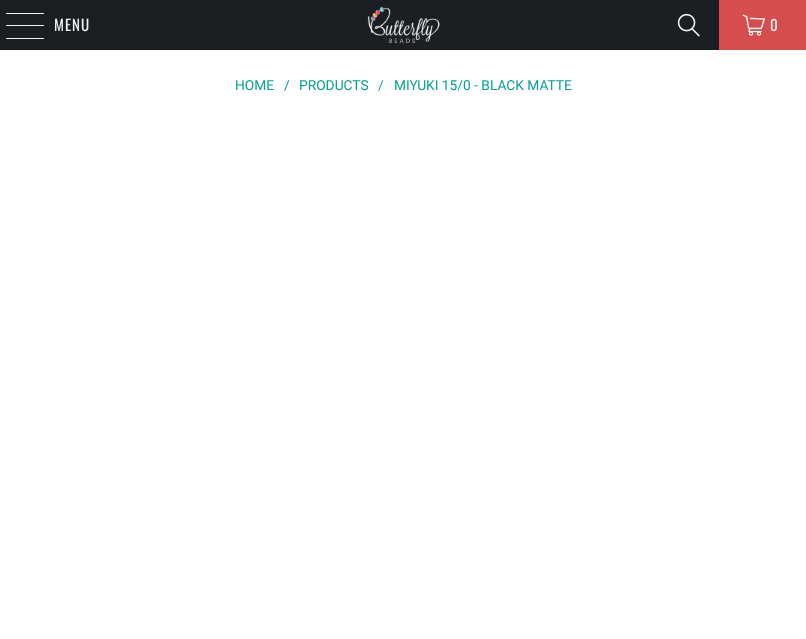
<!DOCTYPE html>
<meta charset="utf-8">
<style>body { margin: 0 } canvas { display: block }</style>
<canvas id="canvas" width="806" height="639"></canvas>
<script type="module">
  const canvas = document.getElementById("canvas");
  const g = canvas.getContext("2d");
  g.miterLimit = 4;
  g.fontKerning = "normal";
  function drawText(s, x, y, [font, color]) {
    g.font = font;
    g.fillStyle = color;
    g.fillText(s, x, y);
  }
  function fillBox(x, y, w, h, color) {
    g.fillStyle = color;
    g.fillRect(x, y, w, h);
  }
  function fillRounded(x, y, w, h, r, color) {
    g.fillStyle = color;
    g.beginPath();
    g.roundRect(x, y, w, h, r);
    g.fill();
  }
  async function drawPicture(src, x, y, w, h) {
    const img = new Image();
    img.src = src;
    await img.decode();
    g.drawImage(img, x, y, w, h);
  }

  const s1 = ["15px Oswald", "#F4F4F4"];
  const s2 = ["13.75px Roboto", "#03A196"];

  fillBox(0, 0, 806, 639, "#FFFFFF");
  fillBox(0, 0, 719, 50, "#1B1F23");
  fillRounded(6, 13, 38, 1, 0.5, "#F4F4F4");
  fillRounded(6, 25, 38, 1, 0.5, "#F4F4F4");
  fillRounded(6, 38, 38, 1, 0.5, "#F4F4F4");
  g.letterSpacing = "1px";
  drawText("MENU", 54, 31, s1);
  await drawPicture("pic1.png", 367, 7, 73, 36);
  await drawPicture("pic2.png", 677, 13, 23, 24);
  fillBox(719, 0, 87, 50, "#D54D4D");
  await drawPicture("pic3.png", 742, 14, 23, 22);
  drawText("0", 770, 31, s1);
  g.letterSpacing = "0px";
  drawText("HOME", 235, 90, s2);
  drawText("/", 284, 90, s2);
  drawText("PRODUCTS", 299, 90, s2);
  drawText("/", 378, 90, s2);
  drawText("MIYUKI 15/0 - BLACK MATTE", 394, 90, s2);
</script>
